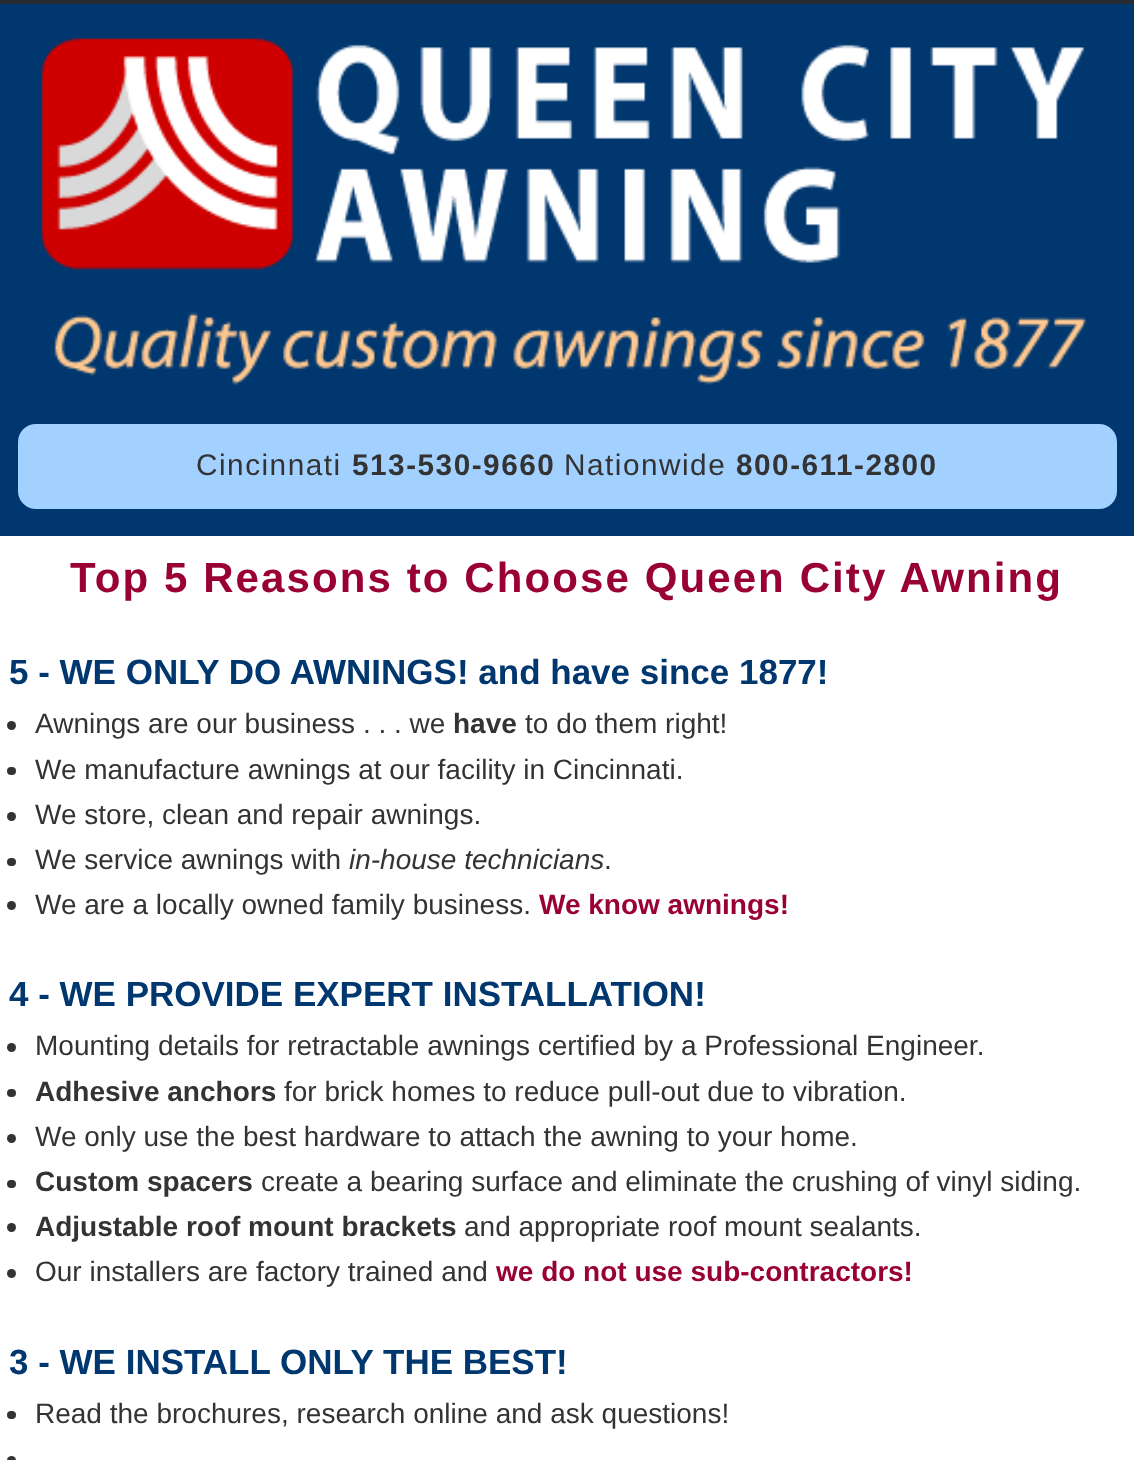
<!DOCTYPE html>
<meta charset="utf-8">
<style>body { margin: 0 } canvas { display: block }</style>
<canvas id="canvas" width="1134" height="1460"></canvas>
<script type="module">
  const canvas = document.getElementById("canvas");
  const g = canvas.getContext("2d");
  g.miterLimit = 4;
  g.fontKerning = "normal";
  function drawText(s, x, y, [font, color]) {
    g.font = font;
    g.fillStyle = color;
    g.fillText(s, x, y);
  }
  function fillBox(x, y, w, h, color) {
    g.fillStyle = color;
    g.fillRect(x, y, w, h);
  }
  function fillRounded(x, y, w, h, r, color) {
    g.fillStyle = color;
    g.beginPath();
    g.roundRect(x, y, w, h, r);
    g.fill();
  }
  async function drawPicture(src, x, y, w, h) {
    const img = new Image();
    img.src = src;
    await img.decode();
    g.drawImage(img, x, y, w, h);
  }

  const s1 = ["29.75px Liberation Sans", "#333333"];
  const s2 = ["bold 29.75px Liberation Sans", "#333333"];
  const s3 = ["bold 42px Liberation Sans", "#990033"];
  const s4 = ["bold 35px Liberation Sans", "#00376F"];
  const s5 = ["28px Liberation Sans", "#333333"];
  const s6 = ["bold 28px Liberation Sans", "#333333"];
  const s7 = ["italic 28px Liberation Sans", "#333333"];
  const s8 = ["bold 28px Liberation Sans", "#990033"];

  fillBox(0, 0, 1134, 1460, "#272A31");
  fillBox(0, 536, 1134, 924, "#FFFFFF");
  fillBox(0, 4, 1134, 532, "#00376F");
  await drawPicture("pic1.png", 41, 38, 1046, 347);
  fillRounded(18, 424, 1099, 85, 18, "#A2D0FF");
  g.letterSpacing = "1.5px";
  drawText("Cincinnati", 196, 475, s1);
  drawText("513-530-9660", 352, 475, s2);
  drawText("Nationwide", 564, 475, s1);
  drawText("800-611-2800", 736, 475, s2);
  g.letterSpacing = "2.1px";
  drawText("Top 5 Reasons to Choose Queen City Awning", 70, 592, s3);
  g.letterSpacing = "0px";
  drawText("5 - WE ONLY DO AWNINGS! and have since 1877!", 9, 684, s4);
  g.fillStyle = "#333333";
  g.beginPath();
  g.arc(11.5, 725.5, 4.5, 0, Math.PI * 2);
  g.fill();
  drawText("Awnings are our business . . . we", 35, 733, s5);
  drawText("have", 453, 733, s6);
  drawText("to do them right!", 525, 733, s5);
  fillRounded(7, 767, 9, 8, 4, "#333333");
  drawText("We manufacture awnings at our facility in Cincinnati.", 35, 779, s5);
  g.beginPath();
  g.arc(11.5, 816.5, 4.5, 0, Math.PI * 2);
  g.fill();
  drawText("We store, clean and repair awnings.", 35, 824, s5);
  fillRounded(7, 858, 9, 8, 4, "#333333");
  drawText("We service awnings with", 35, 869, s5);
  drawText("in-house technicians", 349, 869, s7);
  drawText(".", 604, 869, s5);
  g.beginPath();
  g.arc(11.5, 905.5, 4.5, 0, Math.PI * 2);
  g.fill();
  drawText("We are a locally owned family business.", 35, 914, s5);
  drawText("We know awnings!", 539, 914, s8);
  drawText("4 - WE PROVIDE EXPERT INSTALLATION!", 9, 1006, s4);
  g.fillStyle = "#333333";
  g.beginPath();
  g.arc(11.5, 1047.5, 4.5, 0, Math.PI * 2);
  g.fill();
  drawText("Mounting details for retractable awnings certified by a Professional Engineer.", 35, 1055, s5);
  fillRounded(7, 1089, 9, 8, 4, "#333333");
  drawText("Adhesive anchors", 35, 1101, s6);
  drawText("for brick homes to reduce pull-out due to vibration.", 284, 1101, s5);
  g.beginPath();
  g.arc(11.5, 1138.5, 4.5, 0, Math.PI * 2);
  g.fill();
  drawText("We only use the best hardware to attach the awning to your home.", 35, 1146, s5);
  fillRounded(7, 1180, 9, 8, 4, "#333333");
  drawText("Custom spacers", 35, 1191, s6);
  drawText("create a bearing surface and eliminate the crushing of vinyl siding.", 261, 1191, s5);
  g.beginPath();
  g.arc(11.5, 1227.5, 4.5, 0, Math.PI * 2);
  g.fill();
  drawText("Adjustable roof mount brackets", 35, 1236, s6);
  drawText("and appropriate roof mount sealants.", 464, 1236, s5);
  g.beginPath();
  g.arc(11.5, 1273.5, 4.5, 0, Math.PI * 2);
  g.fill();
  drawText("Our installers are factory trained and", 35, 1281, s5);
  drawText("we do not use sub-contractors!", 496, 1281, s8);
  drawText("3 - WE INSTALL ONLY THE BEST!", 9, 1374, s4);
  fillRounded(7, 1411, 9, 8, 4, "#333333");
  drawText("Read the brochures, research online and ask questions!", 35, 1423, s5);
  g.beginPath();
  g.arc(11.5, 1460.5, 4.5, 0, Math.PI * 2);
  g.fill();
</script>
